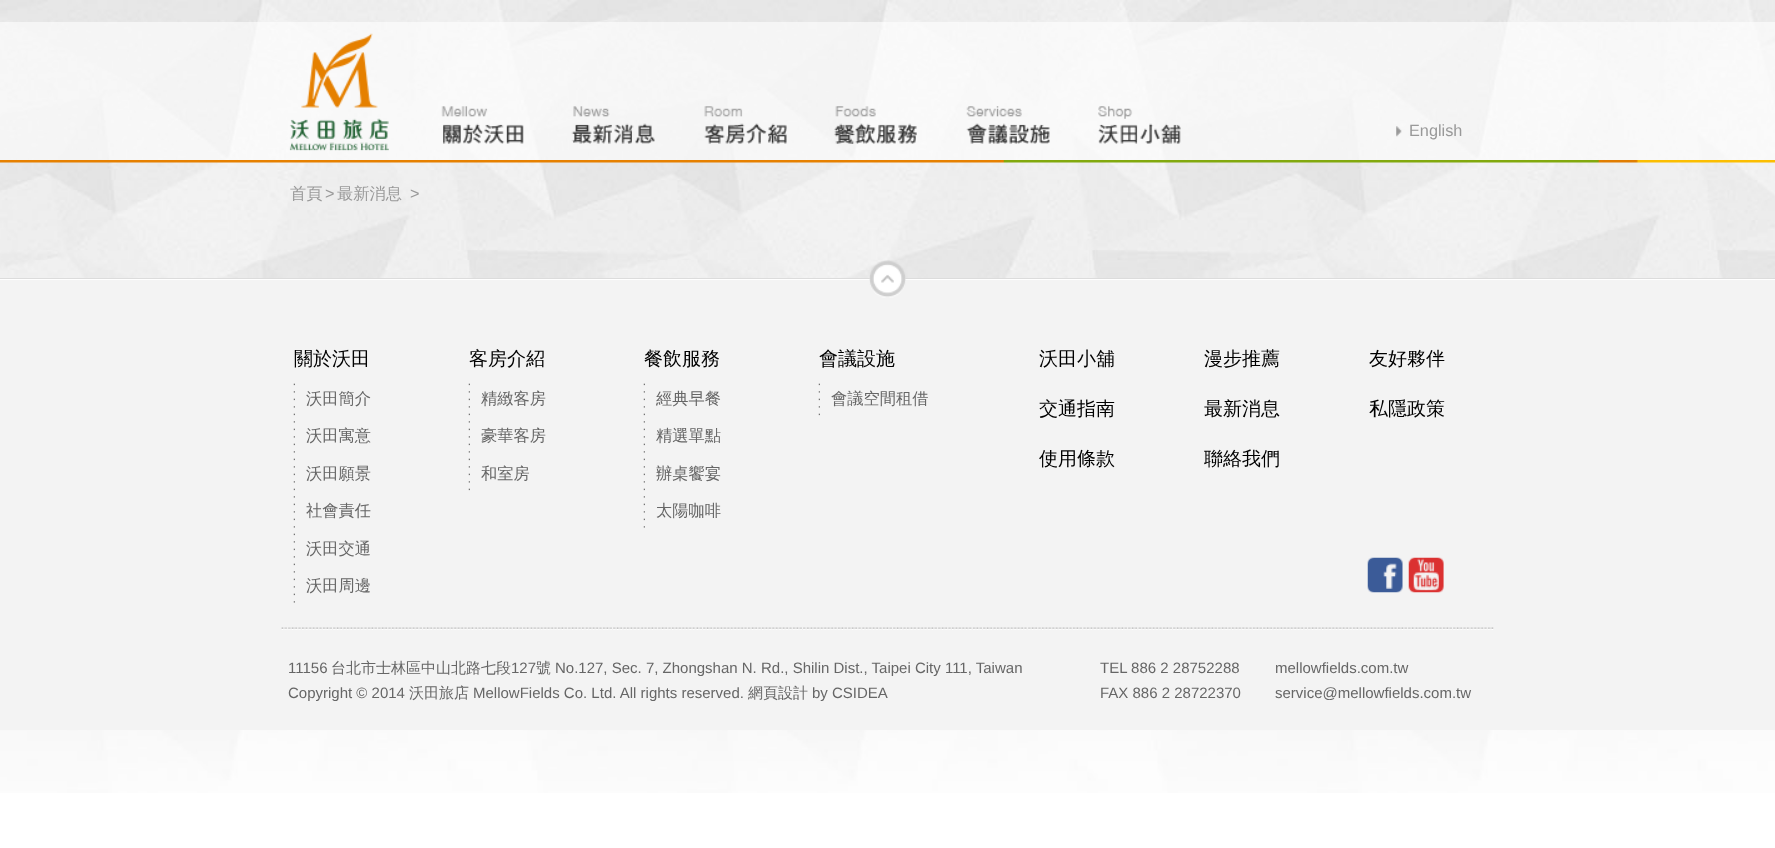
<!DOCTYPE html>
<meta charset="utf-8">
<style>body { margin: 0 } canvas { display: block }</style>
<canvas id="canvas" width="1775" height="848"></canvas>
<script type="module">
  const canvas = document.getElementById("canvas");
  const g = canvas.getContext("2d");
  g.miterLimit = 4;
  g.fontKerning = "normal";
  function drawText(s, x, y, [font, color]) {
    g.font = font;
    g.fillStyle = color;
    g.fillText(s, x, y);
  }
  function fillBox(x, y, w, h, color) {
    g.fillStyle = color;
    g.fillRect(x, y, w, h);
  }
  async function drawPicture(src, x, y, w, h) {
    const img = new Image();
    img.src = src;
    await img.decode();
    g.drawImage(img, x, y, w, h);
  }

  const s1 = ["16.25px Liberation Sans", "#999999"];
  const s2 = ["500 16.25px WenQuanYi Zen Hei", "#999999"];
  const s3 = ["500 19px WenQuanYi Zen Hei", "#000000"];
  const s4 = ["500 16.25px WenQuanYi Zen Hei", "#666666"];
  const s5 = ["15px Liberation Sans", "#666666"];
  const s6 = ["500 15px WenQuanYi Zen Hei", "#666666"];

  fillBox(0, 0, 1775, 848, "#FFFFFF");
  await drawPicture("pic1.png", 0, 0, 1775, 793);
  fillBox(0, 22, 1775, 138, "rgba(255, 255, 255, 0.6)");
  await drawPicture("pic2.png", 289, 33, 100, 118);
  await drawPicture("pic3.png", 441, 106, 83, 38);
  await drawPicture("pic4.png", 571, 106, 84, 38);
  await drawPicture("pic5.png", 704, 106, 83, 38);
  await drawPicture("pic6.png", 834, 106, 83, 38);
  await drawPicture("pic7.png", 966, 106, 84, 38);
  await drawPicture("pic8.png", 1098, 106, 83, 38);
  await drawPicture("pic9.png", 1396, 126, 6, 11);
  drawText("English", 1409, 136, s1);
  await drawPicture("pic10.png", 0, 160, 1775, 3);
  drawText("首頁", 290, 199, s2);
  drawText(">", 325, 199, s1);
  drawText("最新消息", 337, 199, s2);
  drawText(">", 410, 199, s1);
  fillBox(0, 280, 1775, 450, "#F3F3F3");
  fillBox(0, 278, 1775, 1, "#DCDCDC");
  fillBox(0, 279, 1775, 1, "#FFFFFF");
  await drawPicture("pic11.png", 869, 260, 37, 38);
  await drawPicture("pic12.png", 281, 627, 1213, 3);
  drawText("關於沃田", 294, 365, s3);
  await drawPicture("pic13.png", 293, 383, 2, 220);
  drawText("沃田簡介", 306, 404, s4);
  drawText("沃田寓意", 306, 441, s4);
  drawText("沃田願景", 306, 479, s4);
  drawText("社會責任", 306, 516, s4);
  drawText("沃田交通", 306, 554, s4);
  drawText("沃田周邊", 306, 591, s4);
  drawText("客房介紹", 469, 365, s3);
  await drawPicture("pic14.png", 468, 383, 2, 108);
  drawText("精緻客房", 481, 404, s4);
  drawText("豪華客房", 481, 441, s4);
  drawText("和室房", 481, 479, s4);
  drawText("餐飲服務", 644, 365, s3);
  await drawPicture("pic15.png", 643, 383, 2, 145);
  drawText("經典早餐", 656, 404, s4);
  drawText("精選單點", 656, 441, s4);
  drawText("辦桌饗宴", 656, 479, s4);
  drawText("太陽咖啡", 656, 516, s4);
  drawText("會議設施", 819, 365, s3);
  await drawPicture("pic16.png", 818, 383, 2, 33);
  drawText("會議空間租借", 831, 404, s4);
  drawText("沃田小舖", 1039, 365, s3);
  drawText("漫步推薦", 1204, 365, s3);
  drawText("友好夥伴", 1369, 365, s3);
  drawText("交通指南", 1039, 415, s3);
  drawText("最新消息", 1204, 415, s3);
  drawText("私隱政策", 1369, 415, s3);
  drawText("使用條款", 1039, 465, s3);
  drawText("聯絡我們", 1204, 465, s3);
  await drawPicture("pic17.png", 1367, 557, 36, 36);
  await drawPicture("pic18.png", 1408, 557, 36, 36);
  drawText("11156", 288, 673, s5);
  drawText("台北市士林區中山北路七段", 331, 673, s6);
  drawText("127", 511, 673, s5);
  drawText("號", 536, 673, s6);
  drawText("No.127, Sec. 7, Zhongshan N. Rd., Shilin Dist., Taipei City 111, Taiwan", 555, 673, s5);
  drawText("Copyright © 2014", 288, 698, s5);
  drawText("沃田旅店", 409, 698, s6);
  drawText("MellowFields Co. Ltd. All rights reserved.", 473, 698, s5);
  drawText("網頁設計", 748, 698, s6);
  drawText("by CSIDEA", 812, 698, s5);
  drawText("TEL 886 2 28752288", 1100, 673, s5);
  drawText("FAX 886 2 28722370", 1100, 698, s5);
  drawText("mellowfields.com.tw", 1275, 673, s5);
  drawText("service@mellowfields.com.tw", 1275, 698, s5);
</script>
